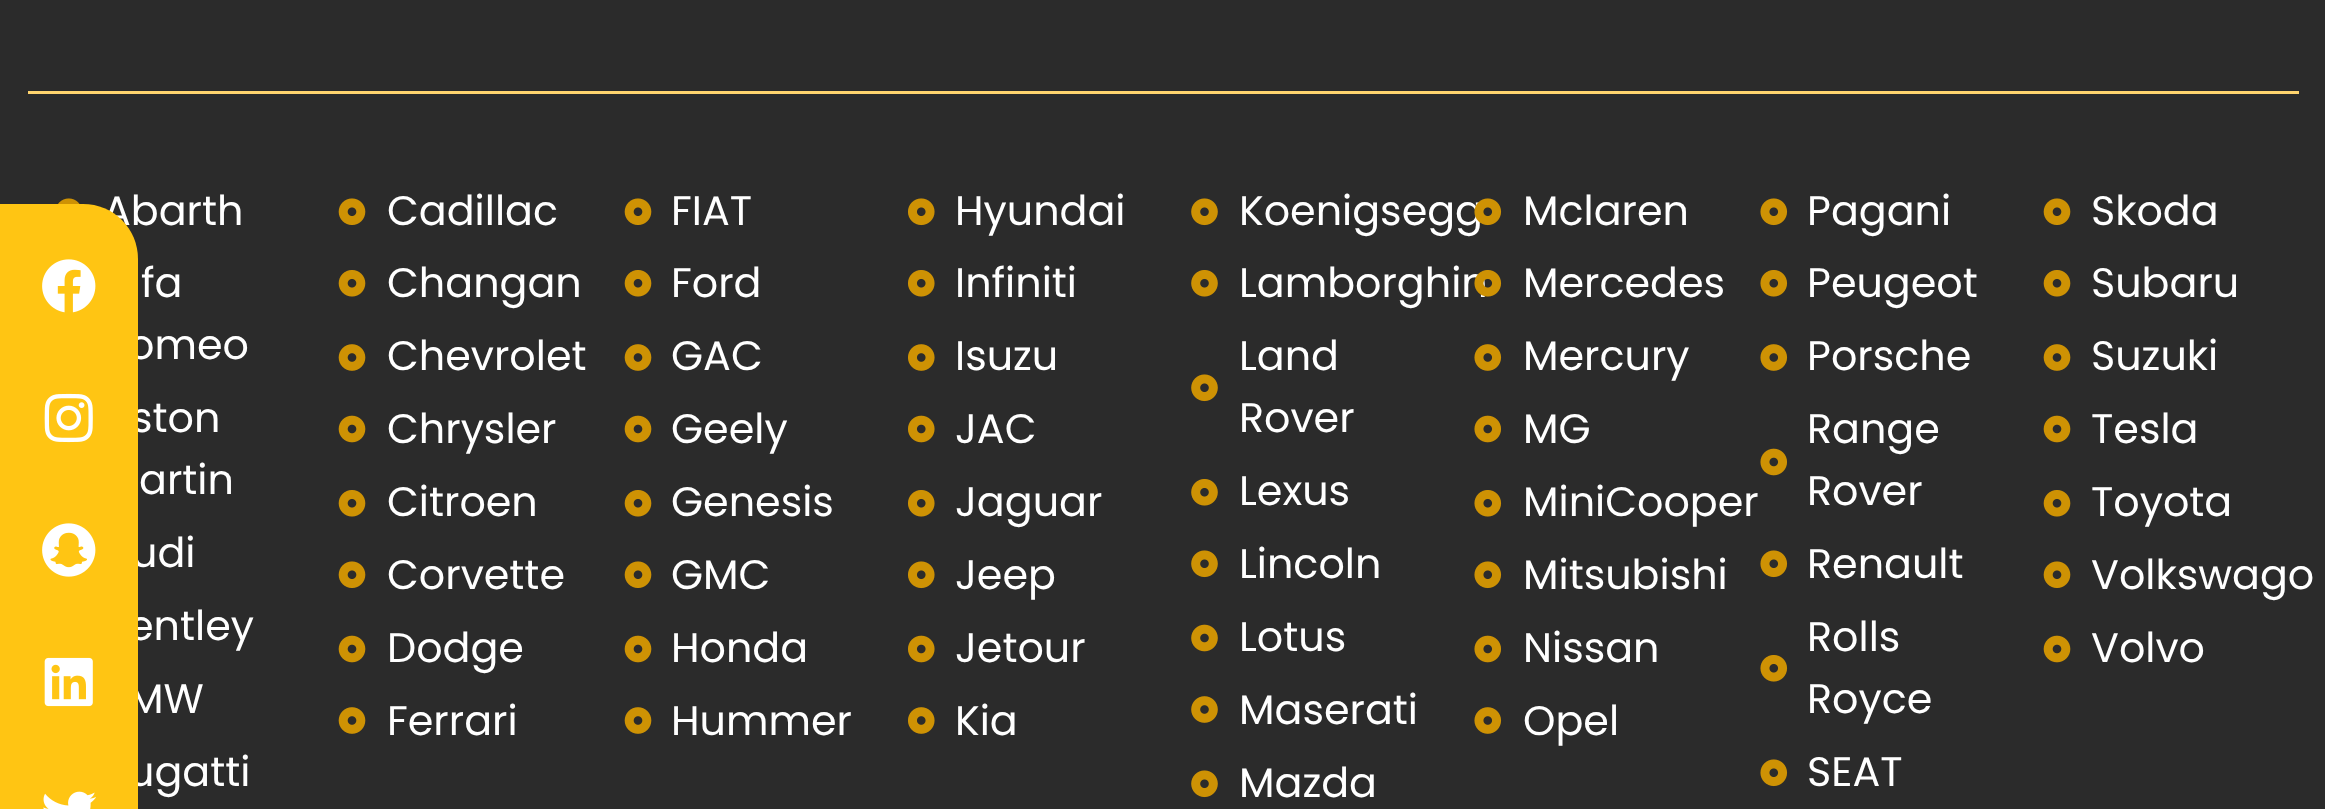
<!DOCTYPE html>
<meta charset="utf-8">
<style>body { margin: 0 } canvas { display: block }</style>
<canvas id="canvas" width="2325" height="809"></canvas>
<script type="module">
  const canvas = document.getElementById("canvas");
  const g = canvas.getContext("2d");
  g.miterLimit = 4;
  g.fontKerning = "normal";
  function drawText(s, x, y, [font, color]) {
    g.font = font;
    g.fillStyle = color;
    g.fillText(s, x, y);
  }
  function fillBox(x, y, w, h, color) {
    g.fillStyle = color;
    g.fillRect(x, y, w, h);
  }
  async function drawPicture(src, x, y, w, h) {
    const img = new Image();
    img.src = src;
    await img.decode();
    g.drawImage(img, x, y, w, h);
  }

  const s1 = ["41.25px Poppins", "#FFFFFF"];

  fillBox(0, 0, 2325, 809, "#2B2B2B");
  drawText("Abarth", 103, 225, s1);
  drawText("omeo", 128, 359, s1);
  drawText("ston", 131, 432, s1);
  drawText("udi", 131, 567, s1);
  drawText("entley", 128, 640, s1);
  drawText("MW", 128, 713, s1);
  drawText("ugatti", 128, 786, s1);
  g.fillStyle = "#FFC513";
  g.beginPath();
  g.moveTo(0, 204);
  g.lineTo(83, 204);
  g.bezierCurveTo(113.5, 204, 138, 228.5, 138, 259);
  g.lineTo(138, 809);
  g.bezierCurveTo(138, 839.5, 113.5, 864, 83, 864);
  g.lineTo(0, 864);
  g.closePath();
  g.fill();
  await drawPicture("pic1.png", 42, 259, 54, 54);
  await drawPicture("pic2.png", 44, 393, 49, 50);
  await drawPicture("pic3.png", 42, 523, 54, 54);
  await drawPicture("pic4.png", 44, 657, 49, 50);
  await drawPicture("pic5.png", 43, 791, 53, 18);
  fillBox(28, 91, 2271, 3, "#FFD46E");
  await drawPicture("pic6.png", 58, 198, 22, 6);
  drawText("fa", 141, 297, s1);
  drawText("artin", 139, 494, s1);
  await drawPicture("pic7.png", 338, 198, 28, 27);
  drawText("Cadillac", 387, 225, s1);
  await drawPicture("pic8.png", 338, 270, 28, 27);
  drawText("Changan", 387, 297, s1);
  await drawPicture("pic9.png", 338, 344, 28, 27);
  drawText("Chevrolet", 387, 370, s1);
  await drawPicture("pic10.png", 338, 415, 28, 28);
  drawText("Chrysler", 387, 443, s1);
  await drawPicture("pic8.png", 338, 490, 28, 27);
  drawText("Citroen", 387, 516, s1);
  await drawPicture("pic7.png", 338, 561, 28, 27);
  drawText("Corvette", 387, 589, s1);
  await drawPicture("pic10.png", 338, 635, 28, 28);
  drawText("Dodge", 387, 662, s1);
  await drawPicture("pic9.png", 338, 707, 28, 27);
  drawText("Ferrari", 387, 735, s1);
  await drawPicture("pic7.png", 624, 198, 28, 27);
  drawText("FIAT", 671, 225, s1);
  await drawPicture("pic8.png", 624, 270, 28, 27);
  drawText("Ford", 671, 297, s1);
  await drawPicture("pic9.png", 624, 344, 28, 27);
  drawText("GAC", 671, 370, s1);
  await drawPicture("pic10.png", 624, 415, 28, 28);
  drawText("Geely", 671, 443, s1);
  await drawPicture("pic8.png", 624, 490, 28, 27);
  drawText("Genesis", 671, 516, s1);
  await drawPicture("pic7.png", 624, 561, 28, 27);
  drawText("GMC", 671, 589, s1);
  await drawPicture("pic10.png", 624, 635, 28, 28);
  drawText("Honda", 671, 662, s1);
  await drawPicture("pic9.png", 624, 707, 28, 27);
  drawText("Hummer", 671, 735, s1);
  await drawPicture("pic11.png", 908, 198, 27, 28);
  drawText("Hyundai", 955, 225, s1);
  await drawPicture("pic12.png", 908, 270, 27, 27);
  drawText("Infiniti", 955, 297, s1);
  await drawPicture("pic13.png", 908, 344, 27, 27);
  drawText("Isuzu", 955, 370, s1);
  await drawPicture("pic14.png", 908, 415, 27, 28);
  drawText("JAC", 955, 443, s1);
  await drawPicture("pic12.png", 908, 490, 27, 27);
  drawText("Jaguar", 955, 516, s1);
  await drawPicture("pic11.png", 908, 561, 27, 28);
  drawText("Jeep", 955, 589, s1);
  await drawPicture("pic14.png", 908, 635, 27, 28);
  drawText("Jetour", 955, 662, s1);
  await drawPicture("pic13.png", 908, 707, 27, 27);
  drawText("Kia", 955, 735, s1);
  await drawPicture("pic15.png", 1191, 198, 27, 28);
  drawText("Koenigsegg", 1239, 225, s1);
  await drawPicture("pic16.png", 1191, 270, 27, 27);
  drawText("Lamborghin", 1239, 297, s1);
  await drawPicture("pic15.png", 1191, 374, 27, 28);
  drawText("Land", 1239, 370, s1);
  drawText("Rover", 1239, 432, s1);
  await drawPicture("pic16.png", 1191, 479, 27, 27);
  drawText("Lexus", 1239, 505, s1);
  await drawPicture("pic15.png", 1191, 550, 27, 28);
  drawText("Lincoln", 1239, 578, s1);
  await drawPicture("pic17.png", 1191, 624, 27, 28);
  drawText("Lotus", 1239, 651, s1);
  await drawPicture("pic18.png", 1191, 696, 27, 27);
  drawText("Maserati", 1239, 724, s1);
  await drawPicture("pic15.png", 1191, 770, 27, 28);
  drawText("Mazda", 1239, 797, s1);
  await drawPicture("pic19.png", 1474, 198, 28, 28);
  drawText("Mclaren", 1523, 225, s1);
  await drawPicture("pic20.png", 1474, 270, 28, 27);
  drawText("Mercedes", 1523, 297, s1);
  await drawPicture("pic21.png", 1474, 344, 28, 27);
  drawText("Mercury", 1523, 370, s1);
  await drawPicture("pic22.png", 1474, 415, 27, 28);
  drawText("MG", 1523, 443, s1);
  await drawPicture("pic23.png", 1474, 490, 28, 27);
  drawText("MiniCooper", 1523, 516, s1);
  await drawPicture("pic24.png", 1474, 561, 28, 28);
  drawText("Mitsubishi", 1523, 589, s1);
  await drawPicture("pic22.png", 1474, 635, 27, 28);
  drawText("Nissan", 1523, 662, s1);
  await drawPicture("pic21.png", 1474, 707, 28, 27);
  drawText("Opel", 1523, 735, s1);
  await drawPicture("pic24.png", 1760, 198, 28, 28);
  drawText("Pagani", 1807, 225, s1);
  await drawPicture("pic23.png", 1760, 270, 28, 27);
  drawText("Peugeot", 1807, 297, s1);
  await drawPicture("pic21.png", 1760, 344, 28, 27);
  drawText("Porsche", 1807, 370, s1);
  await drawPicture("pic22.png", 1760, 448, 27, 28);
  drawText("Range", 1807, 443, s1);
  drawText("Rover", 1807, 505, s1);
  await drawPicture("pic24.png", 1760, 550, 28, 28);
  drawText("Renault", 1807, 578, s1);
  await drawPicture("pic23.png", 1760, 655, 28, 27);
  drawText("Rolls", 1807, 651, s1);
  drawText("Royce", 1807, 713, s1);
  await drawPicture("pic24.png", 1760, 759, 28, 28);
  drawText("SEAT", 1807, 786, s1);
  await drawPicture("pic7.png", 2043, 198, 28, 27);
  drawText("Skoda", 2091, 225, s1);
  await drawPicture("pic8.png", 2043, 270, 28, 27);
  drawText("Subaru", 2091, 297, s1);
  await drawPicture("pic9.png", 2043, 344, 28, 27);
  drawText("Suzuki", 2091, 370, s1);
  await drawPicture("pic10.png", 2043, 415, 28, 28);
  drawText("Tesla", 2091, 443, s1);
  await drawPicture("pic8.png", 2043, 490, 28, 27);
  drawText("Toyota", 2091, 516, s1);
  await drawPicture("pic7.png", 2043, 561, 28, 27);
  drawText("Volkswago", 2091, 589, s1);
  await drawPicture("pic10.png", 2043, 635, 28, 28);
  drawText("Volvo", 2091, 662, s1);
</script>
